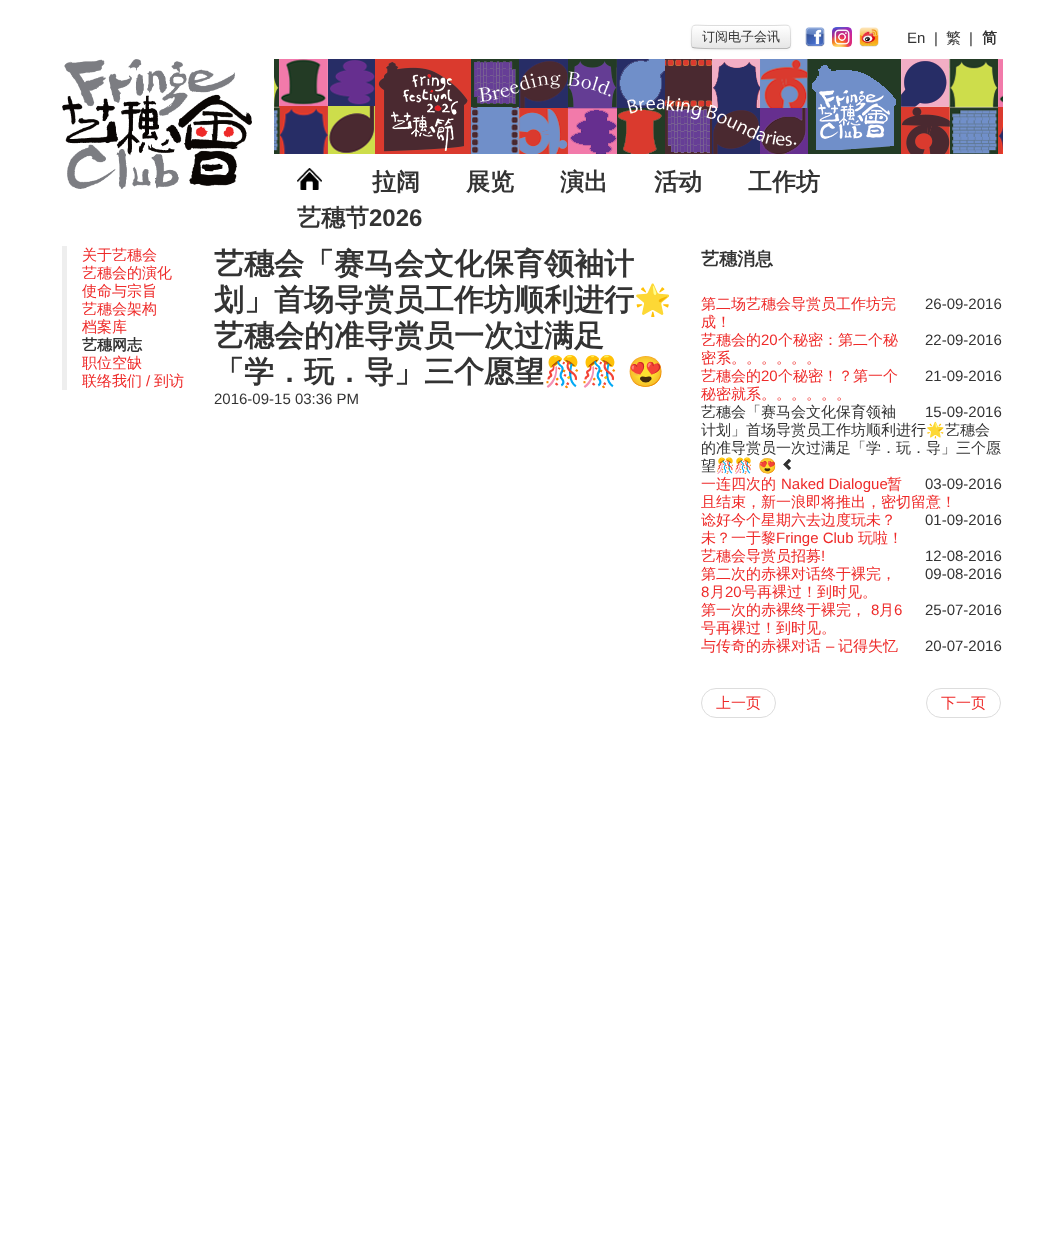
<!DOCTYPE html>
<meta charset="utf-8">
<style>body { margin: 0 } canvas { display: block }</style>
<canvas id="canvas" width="1063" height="1248"></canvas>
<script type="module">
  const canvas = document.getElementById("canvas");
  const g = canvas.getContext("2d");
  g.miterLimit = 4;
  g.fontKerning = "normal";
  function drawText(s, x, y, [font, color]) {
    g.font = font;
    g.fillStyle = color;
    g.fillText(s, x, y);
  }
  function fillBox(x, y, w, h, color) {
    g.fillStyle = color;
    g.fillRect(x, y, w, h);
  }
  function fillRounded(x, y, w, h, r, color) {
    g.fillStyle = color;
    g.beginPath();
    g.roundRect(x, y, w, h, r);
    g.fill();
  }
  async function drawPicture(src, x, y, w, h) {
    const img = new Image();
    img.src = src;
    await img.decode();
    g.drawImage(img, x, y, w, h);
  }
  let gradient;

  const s1 = ["500 13px WenQuanYi Zen Hei", "#333333"];
  const s2 = ["15px Liberation Sans", "#333333"];
  const s3 = ["500 15px WenQuanYi Zen Hei", "#333333"];
  const s4 = ["bold 15px WenQuanYi Zen Hei", "#333333"];
  const s5 = ["bold 24px WenQuanYi Zen Hei", "#333333"];
  const s6 = ["bold 24px Liberation Sans", "#333333"];
  const s7 = ["500 15px WenQuanYi Zen Hei", "#EE2A29"];
  const s8 = ["15px Liberation Sans", "#EE2A29"];
  const s9 = ["bold 30px WenQuanYi Zen Hei", "#333333"];
  const s10 = ["bold 30px Noto Color Emoji", "#333333"];
  const s11 = ["bold 18px WenQuanYi Zen Hei", "#333333"];
  const s12 = ["15px Noto Color Emoji", "#333333"];

  fillBox(0, 0, 1063, 1248, "#FFFFFF");
  g.fillStyle = "rgba(0, 0, 0, 0.05)";
  g.filter = "blur(1px)";
  g.beginPath();
  g.roundRect(691, 26, 100, 24, 4);
  g.fill();
  g.filter = "none";
  fillRounded(691, 25, 100, 24, 4, "#F5F5F5");
  g.save();
  g.beginPath();
  g.roundRect(691, 25, 100, 24, 4);
  g.clip();
  gradient = g.createLinearGradient(741, 26, 741, 48);
  gradient.addColorStop(0, "#FFFFFF");
  gradient.addColorStop(1, "#E6E6E6");
  g.fillStyle = gradient;
  g.fillRect(691, 26, 100, 22);
  g.restore();
  g.beginPath();
  g.moveTo(789.5, 47.5);
  g.lineTo(787, 48.5);
  g.lineTo(771.5, 48.5);
  g.bezierCurveTo(763, 48.5, 695, 49.5, 693, 47.5);
  g.lineTo(692.5, 47.5);
  g.strokeStyle = "rgba(0, 0, 0, 0.25)";
  g.stroke();
  g.beginPath();
  g.moveTo(692.5, 47.5);
  g.bezierCurveTo(690.5, 45.5, 691.5, 39.5, 691.5, 37);
  g.bezierCurveTo(691.5, 21.5, 692, 25.5, 710.5, 25.5);
  g.lineTo(771.5, 25.5);
  g.bezierCurveTo(790, 25.5, 790.5, 21.5, 790.5, 37);
  g.bezierCurveTo(790.5, 39.5, 791.5, 45.5, 789.5, 47.5);
  g.strokeStyle = "rgba(0, 0, 0, 0.1)";
  g.stroke();
  drawText("订阅电子会讯", 702, 41, s1);
  await drawPicture("pic1.png", 805, 27, 20, 20);
  await drawPicture("pic2.png", 832, 27, 20, 20);
  await drawPicture("pic3.png", 859, 27, 20, 20);
  drawText("En", 907, 43, s2);
  drawText("|", 934, 43, s2);
  drawText("繁", 946, 43, s3);
  drawText("|", 969, 43, s2);
  drawText("简", 982, 43, s4);
  await drawPicture("pic4.png", 62, 59, 190, 130);
  await drawPicture("pic5.png", 274, 59, 729, 95);
  await drawPicture("pic6.png", 297, 168, 25, 22);
  drawText("拉阔", 372, 190, s5);
  drawText("展览", 466, 190, s5);
  drawText("演出", 560, 190, s5);
  drawText("活动", 654, 190, s5);
  drawText("工作坊", 748, 190, s5);
  drawText("艺穗节", 297, 226, s5);
  drawText("2026", 369, 226, s6);
  fillBox(62, 246, 5, 144, "#EEEEEE");
  drawText("关于艺穗会", 82, 260, s7);
  drawText("艺穗会的演化", 82, 278, s7);
  drawText("使命与宗旨", 82, 296, s7);
  drawText("艺穗会架构", 82, 314, s7);
  drawText("档案库", 82, 332, s7);
  drawText("艺穗网志", 82, 350, s4);
  drawText("职位空缺", 82, 368, s7);
  drawText("联络我们", 82, 386, s7);
  drawText("/", 146, 386, s8);
  drawText("到访", 154, 386, s7);
  drawText("艺穗会「赛马会文化保育领袖计", 214, 274, s9);
  drawText("划」首场导赏员工作坊顺利进行", 214, 310, s9);
  drawText("🌟", 634, 310, s10);
  drawText("艺穗会的准导赏员一次过满足", 214, 346, s9);
  drawText("「学．玩．导」三个愿望", 214, 382, s9);
  drawText("🎊🎊", 544, 382, s10);
  drawText("😍", 627, 382, s10);
  drawText("2016-09-15 03:36 PM", 214, 404, s2);
  drawText("艺穗消息", 701, 265, s11);
  drawText("第二场艺穗会导赏员工作坊完", 701, 309, s7);
  drawText("26-09-2016", 925, 309, s2);
  drawText("成！", 701, 327, s7);
  drawText("艺穗会的", 701, 345, s7);
  drawText("20", 761, 345, s8);
  drawText("个秘密：第二个秘", 778, 345, s7);
  drawText("22-09-2016", 925, 345, s2);
  drawText("密系。。。。。。", 701, 363, s7);
  drawText("艺穗会的", 701, 381, s7);
  drawText("20", 761, 381, s8);
  drawText("个秘密！？第一个", 778, 381, s7);
  drawText("21-09-2016", 925, 381, s2);
  drawText("秘密就系。。。。。。", 701, 399, s7);
  drawText("艺穗会「赛马会文化保育领袖", 701, 417, s3);
  drawText("15-09-2016", 925, 417, s2);
  drawText("计划」首场导赏员工作坊顺利进行", 701, 435, s3);
  drawText("🌟", 926, 435, s12);
  drawText("艺穗会", 945, 435, s3);
  drawText("的准导赏员一次过满足「学．玩．导」三个愿", 701, 453, s3);
  drawText("望", 701, 471, s3);
  drawText("🎊🎊", 716, 471, s12);
  drawText("😍", 758, 471, s12);
  await drawPicture("pic7.png", 783, 459, 8, 12);
  drawText("一连四次的", 701, 489, s7);
  drawText("Naked Dialogue", 781, 489, s8);
  drawText("暂", 887, 489, s7);
  drawText("03-09-2016", 925, 489, s2);
  drawText("且结束，新一浪即将推出，密切留意！", 701, 507, s7);
  drawText("谂好今个星期六去边度玩未？", 701, 525, s7);
  drawText("01-09-2016", 925, 525, s2);
  drawText("未？一于黎", 701, 543, s7);
  drawText("Fringe Club", 776, 543, s8);
  drawText("玩啦！", 858, 543, s7);
  drawText("艺穗会导赏员招募", 701, 561, s7);
  drawText("!", 821, 561, s8);
  drawText("12-08-2016", 925, 561, s2);
  drawText("第二次的赤裸对话终于裸完，", 701, 579, s7);
  drawText("09-08-2016", 925, 579, s2);
  drawText("8", 701, 597, s8);
  drawText("月", 710, 597, s7);
  drawText("20", 725, 597, s8);
  drawText("号再裸过！到时见。", 742, 597, s7);
  drawText("第一次的赤裸终于裸完，", 701, 615, s7);
  drawText("8", 871, 615, s8);
  drawText("月", 879, 615, s7);
  drawText("6", 894, 615, s8);
  drawText("25-07-2016", 925, 615, s2);
  drawText("号再裸过！到时见。", 701, 633, s7);
  drawText("与传奇的赤裸对话", 701, 651, s7);
  drawText("–", 826, 651, s8);
  drawText("记得失忆", 838, 651, s7);
  drawText("20-07-2016", 925, 651, s2);
  g.beginPath();
  g.roundRect(701.5, 688.5, 74, 29, 14.5);
  g.strokeStyle = "#DDDDDD";
  g.stroke();
  drawText("上一页", 716, 708, s7);
  g.beginPath();
  g.roundRect(926.5, 688.5, 74, 29, 14.5);
  g.stroke();
  drawText("下一页", 941, 708, s7);
</script>
